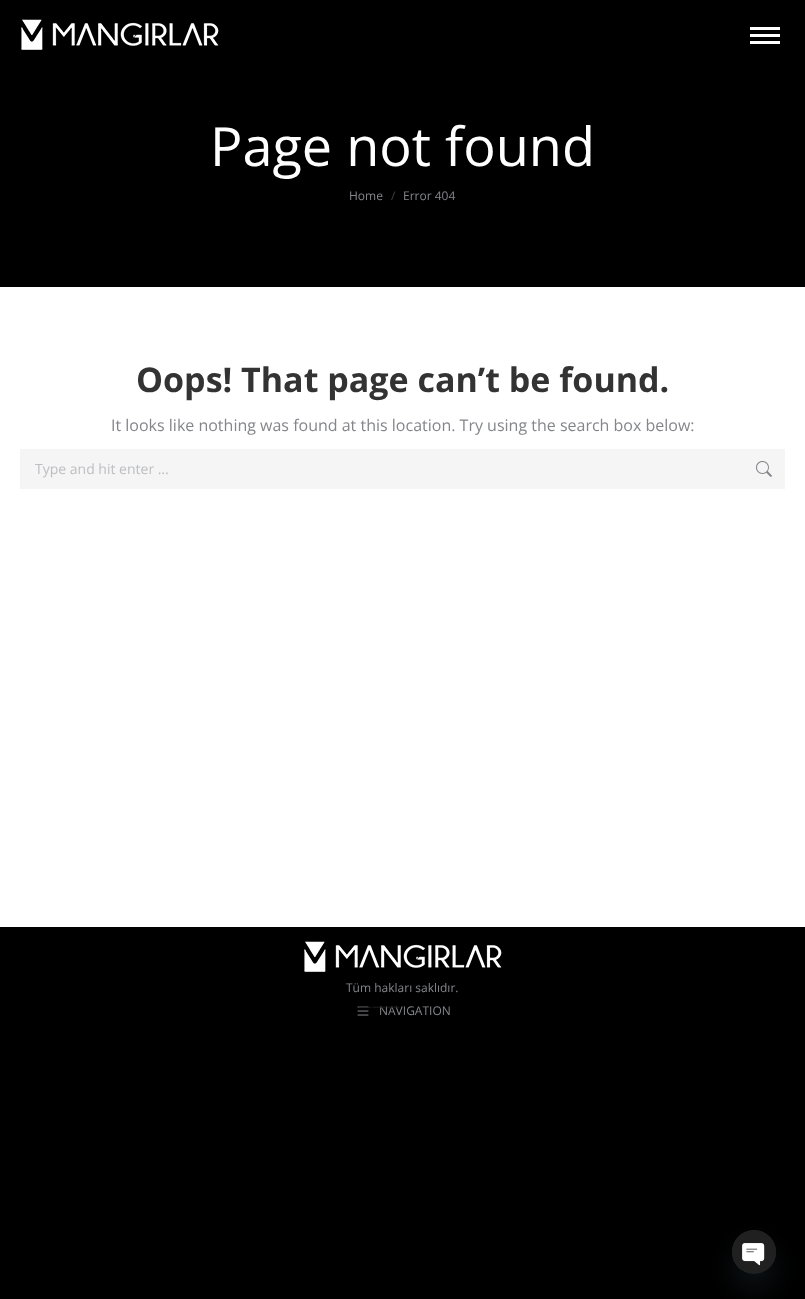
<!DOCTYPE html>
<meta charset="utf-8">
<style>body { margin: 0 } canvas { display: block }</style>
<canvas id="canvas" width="805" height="1299"></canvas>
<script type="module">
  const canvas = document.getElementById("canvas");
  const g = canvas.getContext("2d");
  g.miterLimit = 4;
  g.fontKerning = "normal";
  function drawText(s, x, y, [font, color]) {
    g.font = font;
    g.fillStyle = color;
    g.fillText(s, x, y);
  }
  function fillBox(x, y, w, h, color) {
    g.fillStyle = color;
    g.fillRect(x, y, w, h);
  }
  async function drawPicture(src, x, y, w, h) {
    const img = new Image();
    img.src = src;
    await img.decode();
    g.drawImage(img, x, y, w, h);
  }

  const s1 = ["54px Open Sans", "#FFFFFF"];
  const s2 = ["12px Open Sans", "#85868C"];
  const s3 = ["12px Open Sans", "#434346"];
  const s4 = ["bold 34px Open Sans", "#333333"];
  const s5 = ["16px Open Sans", "#85868C"];
  const s6 = ["14px Open Sans", "#BDBEC1"];
  const s7 = ["14px Open Sans", "#1E1E1F"];

  fillBox(0, 0, 805, 1299, "#000000");
  fillBox(0, 287, 805, 640, "#FFFFFF");
  await drawPicture("pic1.png", 21, 19, 198, 31);
  fillBox(750, 27, 30, 3, "#FFFFFF");
  fillBox(750, 34, 30, 3, "#FFFFFF");
  fillBox(750, 41, 30, 3, "#FFFFFF");
  drawText("Page not found", 210, 166, s1);
  drawText("Home", 349, 200, s2);
  drawText("/", 391, 200, s3);
  drawText("Error 404", 403, 200, s2);
  drawText("Oops! That page can’t be found.", 136, 392, s4);
  drawText("It looks like nothing was found at this location. Try using the search box below:", 111, 431, s5);
  fillBox(20, 449, 765, 40, "#F5F5F5");
  drawText("Type and hit enter …", 35, 474, s6);
  await drawPicture("pic2.png", 756, 461, 16, 16);
  await drawPicture("pic1.png", 304, 941, 198, 31);
  drawText("Tüm hakları saklıdır.", 346, 992, s2);
  await drawPicture("pic3.png", 357, 1006, 12, 10);
  drawText("NAVIGATION", 379, 1015, s2);
  drawText("———", 358, 1011, s7);
  g.fillStyle = "rgba(73, 104, 126, 0.16)";
  g.filter = "blur(12px)";
  g.beginPath();
  g.roundRect(732, 1246, 44, 44, 22);
  g.fill();
  g.filter = "none";
  g.fillStyle = "#202020";
  g.beginPath();
  g.arc(754, 1252, 22, 0, Math.PI * 2);
  g.fill();
  await drawPicture("pic4.png", 732, 1230, 44, 40);
</script>
